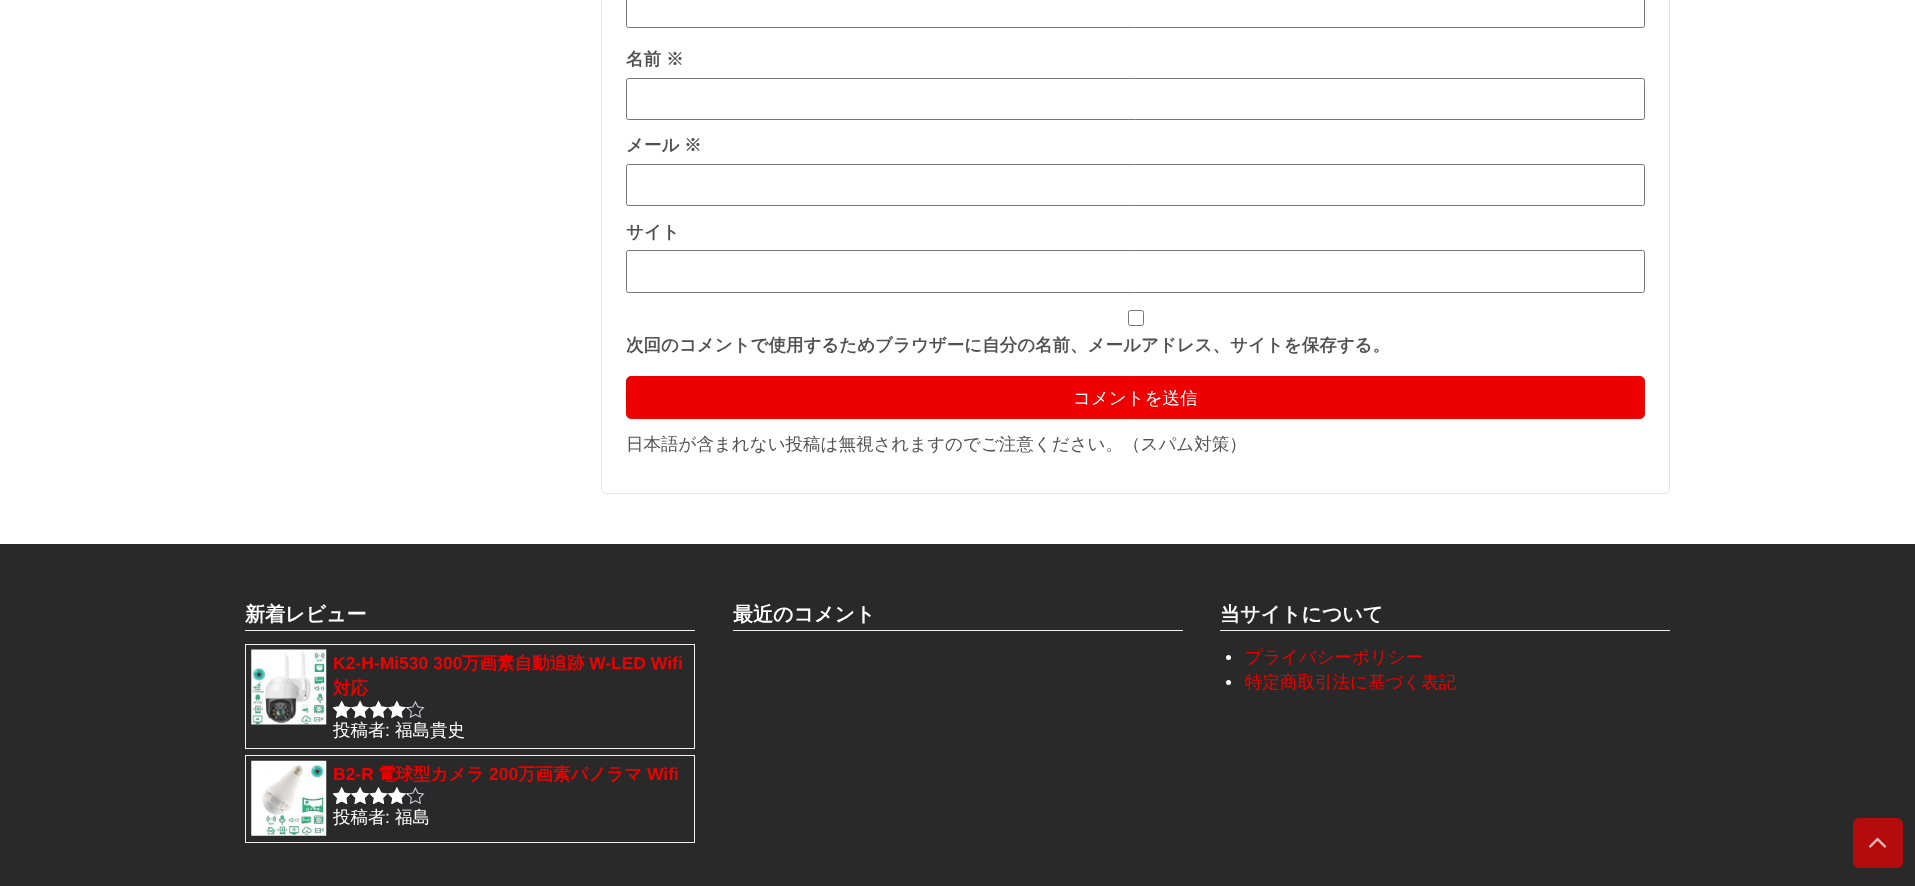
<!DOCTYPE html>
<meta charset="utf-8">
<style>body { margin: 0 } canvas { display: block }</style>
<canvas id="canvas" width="1915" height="886"></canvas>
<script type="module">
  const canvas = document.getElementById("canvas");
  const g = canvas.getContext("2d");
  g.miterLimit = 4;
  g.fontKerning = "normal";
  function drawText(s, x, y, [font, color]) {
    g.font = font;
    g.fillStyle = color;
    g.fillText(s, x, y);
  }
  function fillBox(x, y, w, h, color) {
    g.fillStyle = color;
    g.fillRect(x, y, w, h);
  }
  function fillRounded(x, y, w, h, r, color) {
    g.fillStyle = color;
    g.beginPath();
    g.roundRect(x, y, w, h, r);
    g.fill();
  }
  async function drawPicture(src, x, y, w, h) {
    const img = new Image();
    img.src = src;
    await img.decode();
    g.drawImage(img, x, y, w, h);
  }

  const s1 = ["bold 17.5px WenQuanYi Zen Hei", "#515151"];
  const s2 = ["500 17.5px WenQuanYi Zen Hei", "#FFFFFF"];
  const s3 = ["500 17.5px WenQuanYi Zen Hei", "#515151"];
  const s4 = ["bold 20px WenQuanYi Zen Hei", "#FFFFFF"];
  const s5 = ["bold 17.5px Liberation Sans", "#EF0000"];
  const s6 = ["bold 17.5px WenQuanYi Zen Hei", "#EF0000"];
  const s7 = ["17.5px Liberation Sans", "#FFFFFF"];
  const s8 = ["500 17.5px WenQuanYi Zen Hei", "#EF0000"];

  fillBox(0, 0, 1915, 886, "#FFFFFF");
  g.beginPath();
  g.roundRect(601.5, -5.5, 1068, 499, 4.5);
  g.strokeStyle = "#E3E3E3";
  g.stroke();
  g.beginPath();
  g.roundRect(626.5, -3.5, 1018, 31, 2);
  g.strokeStyle = "#767676";
  g.stroke();
  drawText("名前", 626, 65, s1);
  drawText("※", 666, 65, s1);
  g.beginPath();
  g.roundRect(626.5, 78.5, 1018, 41, 2);
  g.stroke();
  drawText("メール", 626, 151, s1);
  drawText("※", 684, 151, s1);
  g.beginPath();
  g.roundRect(626.5, 164.5, 1018, 41, 2);
  g.stroke();
  drawText("サイト", 626, 238, s1);
  g.beginPath();
  g.roundRect(626.5, 250.5, 1018, 42, 2);
  g.stroke();
  g.beginPath();
  g.roundRect(1128.5, 310.5, 15, 15, 2);
  g.stroke();
  drawText("次回のコメントで使用するためブラウザーに自分の名前、メールアドレス、サイトを保存する。", 626, 351, s1);
  g.fillStyle = "#EF0000";
  g.beginPath();
  g.roundRect(626.5, 376.5, 1018, 42, 4.5);
  g.fill();
  g.strokeStyle = "#EF0000";
  g.stroke();
  drawText("コメントを送信", 1073, 404, s2);
  drawText("日本語が含まれない投稿は無視されますのでご注意ください。（スパム対策）", 626, 450, s3);
  fillBox(0, 544, 1915, 342, "#292929");
  fillBox(245, 630, 450, 1, "#F1F1F1");
  drawText("新着レビュー", 245, 621, s4);
  g.strokeStyle = "#F1F1F1";
  g.strokeRect(245.5, 644.5, 449, 104);
  await drawPicture("pic1.png", 251, 649, 76, 76);
  drawText("K2-H-Mi530 300", 333, 669, s5);
  drawText("万画素自動追跡", 462, 669, s6);
  drawText("W-LED Wifi", 589, 669, s5);
  drawText("対応", 333, 694, s6);
  await drawPicture("pic2.png", 333, 700, 92, 18);
  await drawPicture("pic3.png", 333, 700, 75, 18);
  drawText("投稿者", 333, 736, s2);
  drawText(":", 385, 736, s7);
  drawText("福島貴史", 395, 736, s2);
  g.strokeRect(245.5, 755.5, 449, 87);
  await drawPicture("pic4.png", 251, 760, 76, 76);
  drawText("B2-R", 333, 780, s5);
  drawText("電球型カメラ", 378, 780, s6);
  drawText("200", 489, 780, s5);
  drawText("万画素パノラマ", 518, 780, s6);
  drawText("Wifi", 647, 780, s5);
  await drawPicture("pic5.png", 333, 787, 92, 17);
  await drawPicture("pic6.png", 333, 787, 75, 17);
  drawText("投稿者", 333, 823, s2);
  drawText(":", 385, 823, s7);
  drawText("福島", 395, 823, s2);
  fillBox(733, 630, 450, 1, "#F1F1F1");
  drawText("最近のコメント", 733, 621, s4);
  fillBox(1220, 630, 450, 1, "#F1F1F1");
  drawText("当サイトについて", 1220, 621, s4);
  g.beginPath();
  g.arc(1228.5, 657.5, 2.5, 0, Math.PI * 2);
  g.fill();
  drawText("プライバシーポリシー", 1245, 663, s8);
  g.fillStyle = "#FFFFFF";
  g.beginPath();
  g.arc(1228.5, 682.5, 2.5, 0, Math.PI * 2);
  g.fill();
  drawText("特定商取引法に基づく表記", 1245, 688, s8);
  fillRounded(1853, 818, 50, 50, 6, "#B40C0C");
  await drawPicture("pic7.png", 1868, 837, 19, 11);
</script>
